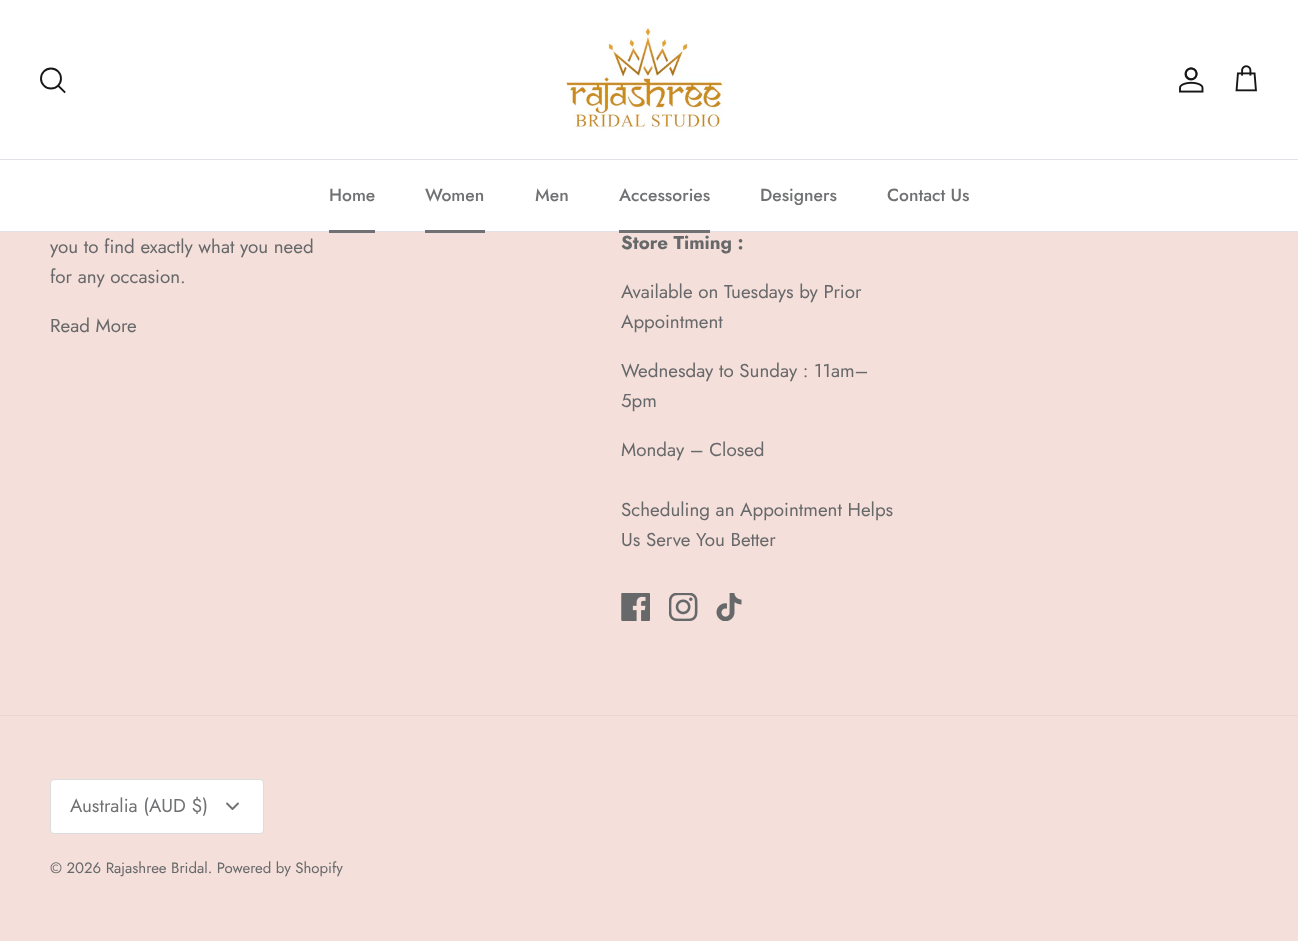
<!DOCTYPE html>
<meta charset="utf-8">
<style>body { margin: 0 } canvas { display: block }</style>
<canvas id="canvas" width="1298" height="941"></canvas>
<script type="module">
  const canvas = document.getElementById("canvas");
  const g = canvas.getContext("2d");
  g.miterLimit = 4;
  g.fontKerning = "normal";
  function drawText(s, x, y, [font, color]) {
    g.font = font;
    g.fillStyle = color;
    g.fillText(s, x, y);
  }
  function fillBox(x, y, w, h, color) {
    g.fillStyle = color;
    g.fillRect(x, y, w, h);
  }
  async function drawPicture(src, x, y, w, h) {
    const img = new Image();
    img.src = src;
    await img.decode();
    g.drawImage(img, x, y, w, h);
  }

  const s1 = ["500 17.5px Jost", "#707173"];
  const s2 = ["18.75px Jost", "#676869"];
  const s3 = ["bold 18.75px Jost", "#676869"];
  const s4 = ["18.75px Jost", "#707173"];
  const s5 = ["15px Jost", "#676869"];

  fillBox(0, 0, 1298, 941, "#F4DFDB");
  fillBox(0, 0, 1298, 159, "#FFFFFF");
  fillBox(0, 159, 1298, 1, "#DFE3E8");
  g.beginPath();
  g.arc(51, 78.5, 10, 0, Math.PI * 2);
  g.strokeStyle = "#171717";
  g.lineWidth = 1.9;
  g.stroke();
  g.beginPath();
  g.moveTo(58.5, 86);
  g.lineTo(64.5, 92);
  g.lineCap = "square";
  g.stroke();
  await drawPicture("pic1.png", 566, 24, 157, 106);
  await drawPicture("pic2.png", 1179, 67, 25, 26);
  await drawPicture("pic3.png", 1235, 65, 22, 27);
  fillBox(0, 231, 1298, 1, "#DFE3E8");
  fillBox(0, 160, 1298, 71, "#FFFFFF");
  drawText("Home", 329, 201, s1);
  fillBox(329, 230, 46, 3, "#707173");
  drawText("Women", 425, 201, s1);
  fillBox(425, 230, 60, 3, "#707173");
  drawText("Men", 535, 201, s1);
  drawText("Accessories", 619, 201, s1);
  fillBox(619, 230, 91, 3, "#707173");
  drawText("Designers", 760, 201, s1);
  drawText("Contact Us", 887, 201, s1);
  drawText("you to find exactly what you need", 50, 253, s2);
  drawText("for any occasion.", 50, 283, s2);
  drawText("Read More", 50, 332, s2);
  drawText("Store Timing :", 621, 249, s3);
  drawText("Available on Tuesdays by Prior", 621, 298, s2);
  drawText("Appointment", 621, 328, s2);
  drawText("Wednesday to Sunday : 11am–", 621, 377, s2);
  drawText("5pm", 621, 407, s2);
  drawText("Monday – Closed", 621, 456, s2);
  drawText("Scheduling an Appointment Helps", 621, 516, s2);
  drawText("Us Serve You Better", 621, 546, s2);
  await drawPicture("pic4.png", 621, 593, 29, 28);
  await drawPicture("pic5.png", 669, 593, 29, 28);
  await drawPicture("pic6.png", 716, 593, 26, 28);
  fillBox(0, 715, 1298, 1, "#ECD6D1");
  g.fillStyle = "#FFFFFF";
  g.beginPath();
  g.roundRect(50.5, 779.5, 213, 54, 3.5);
  g.fill();
  g.strokeStyle = "#DBDCDC";
  g.lineWidth = 1;
  g.stroke();
  drawText("Australia (AUD $)", 70, 812, s4);
  g.beginPath();
  g.moveTo(227, 803.5);
  g.lineTo(232.5, 809);
  g.lineTo(238, 803.5);
  g.strokeStyle = "#707173";
  g.lineWidth = 1.9;
  g.lineCap = "round";
  g.lineJoin = "round";
  g.stroke();
  drawText("© 2026 Rajashree Bridal. Powered by Shopify", 50, 873, s5);
</script>
